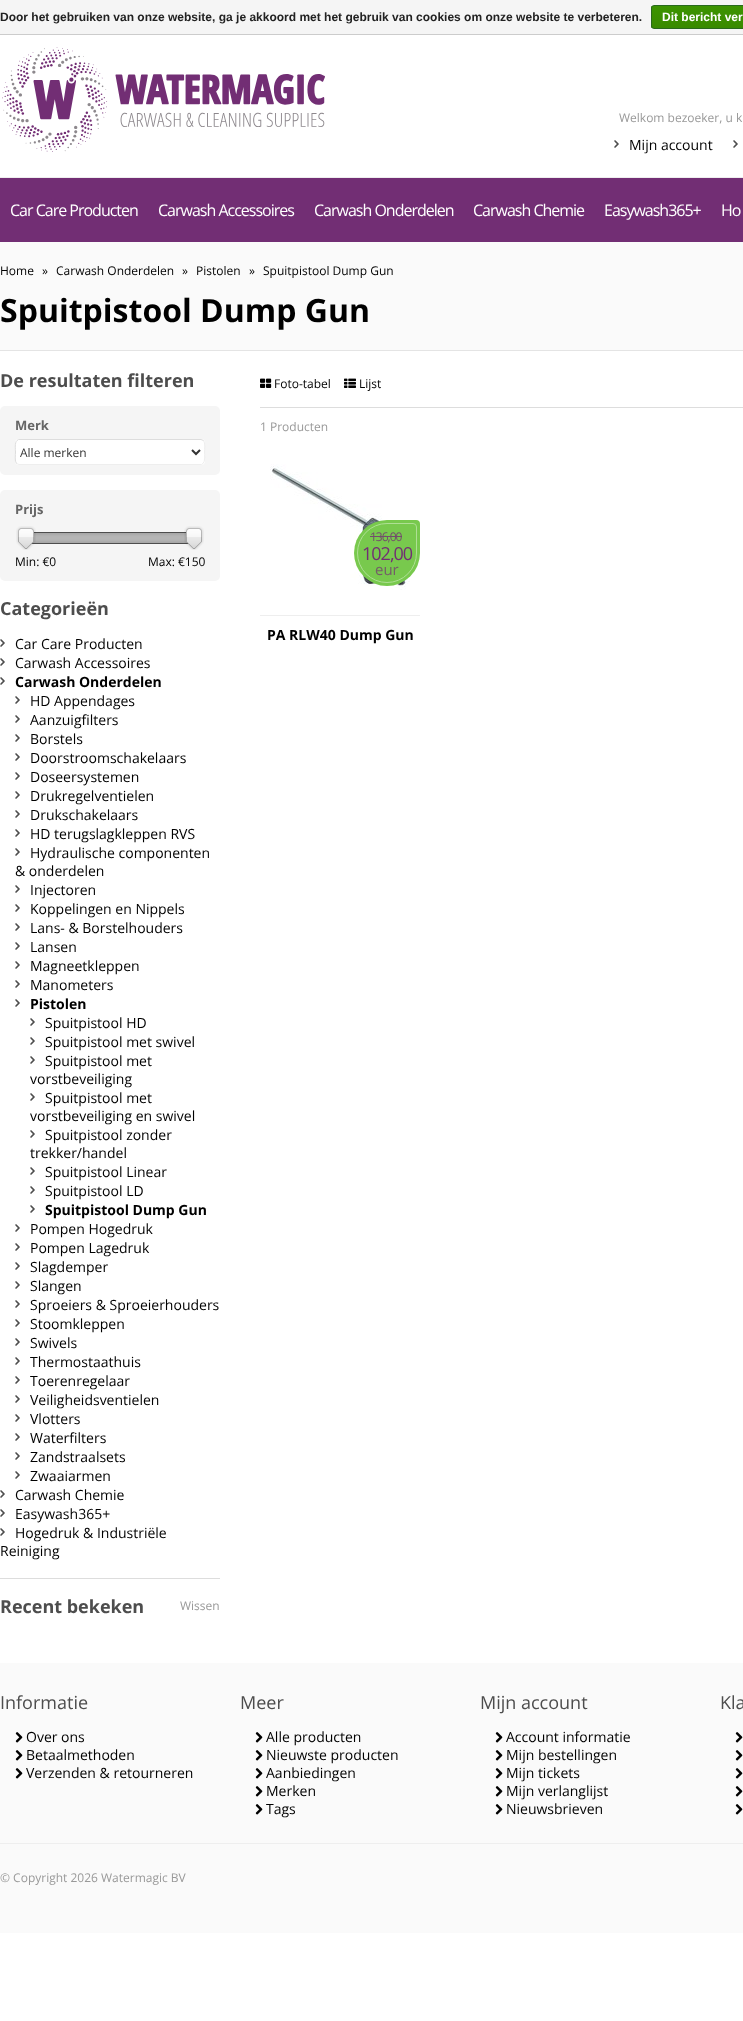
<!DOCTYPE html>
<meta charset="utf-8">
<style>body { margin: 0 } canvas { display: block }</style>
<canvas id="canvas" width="743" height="2021"></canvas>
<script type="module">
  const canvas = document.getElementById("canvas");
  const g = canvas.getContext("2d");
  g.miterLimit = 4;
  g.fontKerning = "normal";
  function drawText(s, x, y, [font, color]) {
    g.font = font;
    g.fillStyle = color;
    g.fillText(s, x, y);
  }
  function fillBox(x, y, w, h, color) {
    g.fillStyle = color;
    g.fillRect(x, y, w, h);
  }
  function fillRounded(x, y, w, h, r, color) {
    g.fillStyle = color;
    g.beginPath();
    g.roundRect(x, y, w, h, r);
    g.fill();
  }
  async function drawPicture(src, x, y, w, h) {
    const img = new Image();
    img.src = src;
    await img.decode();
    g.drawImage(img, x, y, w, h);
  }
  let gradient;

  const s1 = ["bold 12px Liberation Sans", "#222222"];
  const s2 = ["bold 12px Liberation Sans", "#FFFFFF"];
  const s3 = ["12px Open Sans", "#999999"];
  const s4 = ["14px Open Sans", "#000000"];
  const s5 = ["16px Open Sans", "#FFFFFF"];
  const s6 = ["12px Open Sans", "#000000"];
  const s7 = ["bold 32px Open Sans", "#000000"];
  const s8 = ["bold 18px Open Sans", "#4D4D4D"];
  const s9 = ["bold 13px Open Sans", "#666666"];
  const s10 = ["12px Open Sans", "#333333"];
  const s11 = ["bold 14px Open Sans", "#000000"];
  const s12 = ["12px Open Sans", "#734D6C"];
  const s13 = ["18px Open Sans", "#722E74"];
  const s14 = ["15px Open Sans", "#745D68"];
  const s15 = ["18px Open Sans", "#4D4D4D"];

  fillBox(0, 0, 743, 2021, "#FFFFFF");
  fillBox(0, 0, 743, 34, "#F5F5F5");
  fillBox(0, 34, 743, 1, "#CCCCCC");
  drawText("Door het gebruiken van onze website, ga je akkoord met het gebruik van cookies om onze website te verbeteren.", 0, 21, s1);
  g.save();
  g.beginPath();
  g.roundRect(651, 5, 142, 24, 3);
  g.clip();
  gradient = g.createLinearGradient(722, 6, 722, 28);
  gradient.addColorStop(0, "#3C9300");
  gradient.addColorStop(1, "#398A00");
  g.fillStyle = gradient;
  g.fillRect(651, 6, 92, 22);
  g.restore();
  g.beginPath();
  g.roundRect(651.5, 5.5, 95, 23, 2.5);
  g.strokeStyle = "#29691D";
  g.stroke();
  drawText("Dit bericht ver", 662, 21, s2);
  await drawPicture("pic1.png", 2, 47, 323, 105);
  drawText("Welkom bezoeker, u k", 619, 122, s3);
  fillBox(614, 140, 5, 8, "#4D4D4D");
  await drawPicture("pic2.png", 614, 135, 98, 19);
  fillBox(733, 140, 5, 8, "#4D4D4D");
  await drawPicture("pic3.png", 733, 135, 10, 19);
  drawText("Mijn account", 629, 150, s4);
  fillBox(0, 178, 743, 64, "#722E74");
  fillBox(0, 177, 743, 1, "#EEEEEE");
  g.letterSpacing = "-1px";
  drawText("Car Care Producten", 10, 216, s5);
  drawText("Carwash Accessoires", 158, 216, s5);
  drawText("Carwash Onderdelen", 314, 216, s5);
  drawText("Carwash Chemie", 473, 216, s5);
  drawText("Easywash365+", 604, 216, s5);
  drawText("Ho", 721, 216, s5);
  fillBox(0, 242, 743, 108, "#FAFAFA");
  fillBox(0, 350, 743, 1, "#E4E4E4");
  g.letterSpacing = "0px";
  drawText("Home", 0, 275, s6);
  drawText("»", 42, 275, s6);
  drawText("Carwash Onderdelen", 56, 275, s6);
  drawText("»", 182, 275, s6);
  drawText("Pistolen", 196, 275, s6);
  drawText("»", 249, 275, s6);
  drawText("Spuitpistool Dump Gun", 263, 275, s6);
  drawText("Spuitpistool Dump Gun", 0, 322, s7);
  drawText("De resultaten filteren", 0, 387, s8);
  fillRounded(0, 406, 220, 69, 5, "#F5F5F5");
  drawText("Merk", 15, 430, s9);
  fillRounded(15, 439, 190, 26, 4, "#FFFFFF");
  g.beginPath();
  g.moveTo(203.5, 440.5);
  g.bezierCurveTo(205.5, 442.5, 204.5, 449.5, 204.5, 452);
  g.bezierCurveTo(204.5, 454.5, 205.5, 461.5, 203, 463.5);
  g.lineTo(201.5, 464.5);
  g.lineTo(19, 464.5);
  g.lineTo(16.5, 463.5);
  g.strokeStyle = "#EEEEEE";
  g.stroke();
  g.beginPath();
  g.moveTo(16.5, 463.5);
  g.bezierCurveTo(14.5, 461.5, 15.5, 454.5, 15.5, 452);
  g.bezierCurveTo(15.5, 449.5, 14.5, 442.5, 17, 440.5);
  g.lineTo(18.5, 439.5);
  g.lineTo(201, 439.5);
  g.lineTo(203.5, 440.5);
  g.strokeStyle = "#DDDDDD";
  g.stroke();
  g.beginPath();
  g.moveTo(192, 450);
  g.lineTo(196, 454);
  g.lineTo(200, 450);
  g.strokeStyle = "#333333";
  g.lineWidth = 2;
  g.stroke();
  drawText("Alle merken", 20, 457, s10);
  fillRounded(0, 490, 220, 91, 5, "#F5F5F5");
  drawText("Prijs", 15, 514, s9);
  fillBox(32, 533, 156, 10, "#B7B7B7");
  await drawPicture("pic6.png", 32, 533, 156, 10);
  g.strokeStyle = "#4D4D4D";
  g.lineWidth = 1;
  g.strokeRect(25.5, 532.5, 169, 11);
  await drawPicture("pic4.png", 16, 526, 20, 24);
  await drawPicture("pic5.png", 184, 526, 20, 24);
  drawText("Min: €0", 15, 566, s6);
  drawText("Max: €150", 148, 566, s6);
  fillBox(0, 1578, 220, 1, "#DDDDDD");
  drawText("Categorieën", 0, 615, s8);
  fillBox(0, 639, 5, 8, "#4D4D4D");
  await drawPicture("pic7.png", 0, 634, 15, 15);
  drawText("Car Care Producten", 15, 649, s4);
  fillBox(0, 658, 5, 8, "#4D4D4D");
  await drawPicture("pic7.png", 0, 653, 15, 15);
  drawText("Carwash Accessoires", 15, 668, s4);
  fillBox(0, 677, 5, 8, "#4D4D4D");
  await drawPicture("pic7.png", 0, 672, 15, 15);
  drawText("Carwash Onderdelen", 15, 687, s11);
  fillBox(15, 696, 5, 8, "#4D4D4D");
  await drawPicture("pic7.png", 15, 691, 15, 15);
  drawText("HD Appendages", 30, 706, s4);
  fillBox(15, 715, 5, 8, "#4D4D4D");
  await drawPicture("pic7.png", 15, 710, 15, 15);
  drawText("Aanzuigfilters", 30, 725, s4);
  fillBox(15, 734, 5, 8, "#4D4D4D");
  await drawPicture("pic7.png", 15, 729, 15, 15);
  drawText("Borstels", 30, 744, s4);
  fillBox(15, 753, 5, 8, "#4D4D4D");
  await drawPicture("pic7.png", 15, 748, 15, 15);
  drawText("Doorstroomschakelaars", 30, 763, s4);
  fillBox(15, 772, 5, 8, "#4D4D4D");
  await drawPicture("pic7.png", 15, 767, 15, 15);
  drawText("Doseersystemen", 30, 782, s4);
  fillBox(15, 791, 5, 8, "#4D4D4D");
  await drawPicture("pic7.png", 15, 786, 15, 15);
  drawText("Drukregelventielen", 30, 801, s4);
  fillBox(15, 810, 5, 8, "#4D4D4D");
  await drawPicture("pic7.png", 15, 805, 15, 15);
  drawText("Drukschakelaars", 30, 820, s4);
  fillBox(15, 829, 5, 8, "#4D4D4D");
  await drawPicture("pic7.png", 15, 824, 15, 15);
  drawText("HD terugslagkleppen RVS", 30, 839, s4);
  fillBox(15, 848, 5, 8, "#4D4D4D");
  await drawPicture("pic7.png", 15, 843, 15, 15);
  drawText("Hydraulische componenten", 30, 858, s4);
  drawText("& onderdelen", 15, 876, s4);
  fillBox(15, 885, 5, 8, "#4D4D4D");
  await drawPicture("pic7.png", 15, 880, 15, 15);
  drawText("Injectoren", 30, 895, s4);
  fillBox(15, 904, 5, 8, "#4D4D4D");
  await drawPicture("pic7.png", 15, 899, 15, 15);
  drawText("Koppelingen en Nippels", 30, 914, s4);
  fillBox(15, 923, 5, 8, "#4D4D4D");
  await drawPicture("pic7.png", 15, 918, 15, 15);
  drawText("Lans- & Borstelhouders", 30, 933, s4);
  fillBox(15, 942, 5, 8, "#4D4D4D");
  await drawPicture("pic7.png", 15, 937, 15, 15);
  drawText("Lansen", 30, 952, s4);
  fillBox(15, 961, 5, 8, "#4D4D4D");
  await drawPicture("pic7.png", 15, 956, 15, 15);
  drawText("Magneetkleppen", 30, 971, s4);
  fillBox(15, 980, 5, 8, "#4D4D4D");
  await drawPicture("pic7.png", 15, 975, 15, 15);
  drawText("Manometers", 30, 990, s4);
  fillBox(15, 999, 5, 8, "#4D4D4D");
  await drawPicture("pic7.png", 15, 994, 15, 15);
  drawText("Pistolen", 30, 1009, s11);
  fillBox(30, 1018, 5, 8, "#4D4D4D");
  await drawPicture("pic7.png", 30, 1013, 15, 15);
  drawText("Spuitpistool HD", 45, 1028, s4);
  fillBox(30, 1037, 5, 8, "#4D4D4D");
  await drawPicture("pic7.png", 30, 1032, 15, 15);
  drawText("Spuitpistool met swivel", 45, 1047, s4);
  fillBox(30, 1056, 5, 8, "#4D4D4D");
  await drawPicture("pic7.png", 30, 1051, 15, 15);
  drawText("Spuitpistool met", 45, 1066, s4);
  drawText("vorstbeveiliging", 30, 1084, s4);
  fillBox(30, 1093, 5, 8, "#4D4D4D");
  await drawPicture("pic7.png", 30, 1088, 15, 15);
  drawText("Spuitpistool met", 45, 1103, s4);
  drawText("vorstbeveiliging en swivel", 30, 1121, s4);
  fillBox(30, 1130, 5, 8, "#4D4D4D");
  await drawPicture("pic7.png", 30, 1125, 15, 15);
  drawText("Spuitpistool zonder", 45, 1140, s4);
  drawText("trekker/handel", 30, 1158, s4);
  fillBox(30, 1167, 5, 8, "#4D4D4D");
  await drawPicture("pic7.png", 30, 1162, 15, 15);
  drawText("Spuitpistool Linear", 45, 1177, s4);
  fillBox(30, 1186, 5, 8, "#4D4D4D");
  await drawPicture("pic7.png", 30, 1181, 15, 15);
  drawText("Spuitpistool LD", 45, 1196, s4);
  fillBox(30, 1205, 5, 8, "#4D4D4D");
  await drawPicture("pic7.png", 30, 1200, 15, 15);
  drawText("Spuitpistool Dump Gun", 45, 1215, s11);
  fillBox(15, 1224, 5, 8, "#4D4D4D");
  await drawPicture("pic7.png", 15, 1219, 15, 15);
  drawText("Pompen Hogedruk", 30, 1234, s4);
  fillBox(15, 1243, 5, 8, "#4D4D4D");
  await drawPicture("pic7.png", 15, 1238, 15, 15);
  drawText("Pompen Lagedruk", 30, 1253, s4);
  fillBox(15, 1262, 5, 8, "#4D4D4D");
  await drawPicture("pic7.png", 15, 1257, 15, 15);
  drawText("Slagdemper", 30, 1272, s4);
  fillBox(15, 1281, 5, 8, "#4D4D4D");
  await drawPicture("pic7.png", 15, 1276, 15, 15);
  drawText("Slangen", 30, 1291, s4);
  fillBox(15, 1300, 5, 8, "#4D4D4D");
  await drawPicture("pic7.png", 15, 1295, 15, 15);
  drawText("Sproeiers & Sproeierhouders", 30, 1310, s4);
  fillBox(15, 1319, 5, 8, "#4D4D4D");
  await drawPicture("pic7.png", 15, 1314, 15, 15);
  drawText("Stoomkleppen", 30, 1329, s4);
  fillBox(15, 1338, 5, 8, "#4D4D4D");
  await drawPicture("pic7.png", 15, 1333, 15, 15);
  drawText("Swivels", 30, 1348, s4);
  fillBox(15, 1357, 5, 8, "#4D4D4D");
  await drawPicture("pic7.png", 15, 1352, 15, 15);
  drawText("Thermostaathuis", 30, 1367, s4);
  fillBox(15, 1376, 5, 8, "#4D4D4D");
  await drawPicture("pic7.png", 15, 1371, 15, 15);
  drawText("Toerenregelaar", 30, 1386, s4);
  fillBox(15, 1395, 5, 8, "#4D4D4D");
  await drawPicture("pic7.png", 15, 1390, 15, 15);
  drawText("Veiligheidsventielen", 30, 1405, s4);
  fillBox(15, 1414, 5, 8, "#4D4D4D");
  await drawPicture("pic7.png", 15, 1409, 15, 15);
  drawText("Vlotters", 30, 1424, s4);
  fillBox(15, 1433, 5, 8, "#4D4D4D");
  await drawPicture("pic7.png", 15, 1428, 15, 15);
  drawText("Waterfilters", 30, 1443, s4);
  fillBox(15, 1452, 5, 8, "#4D4D4D");
  await drawPicture("pic7.png", 15, 1447, 15, 15);
  drawText("Zandstraalsets", 30, 1462, s4);
  fillBox(15, 1471, 5, 8, "#4D4D4D");
  await drawPicture("pic7.png", 15, 1466, 15, 15);
  drawText("Zwaaiarmen", 30, 1481, s4);
  fillBox(0, 1490, 5, 8, "#4D4D4D");
  await drawPicture("pic7.png", 0, 1485, 15, 15);
  drawText("Carwash Chemie", 15, 1500, s4);
  fillBox(0, 1509, 5, 8, "#4D4D4D");
  await drawPicture("pic7.png", 0, 1504, 15, 15);
  drawText("Easywash365+", 15, 1519, s4);
  fillBox(0, 1528, 5, 8, "#4D4D4D");
  await drawPicture("pic7.png", 0, 1523, 15, 15);
  drawText("Hogedruk & Industriële", 15, 1538, s4);
  drawText("Reiniging", 0, 1556, s4);
  drawText("Recent bekeken", 0, 1613, s8);
  drawText("Wissen", 180, 1610, s3);
  fillBox(260, 407, 483, 1, "#DDDDDD");
  await drawPicture("pic8.png", 260, 378, 12, 10);
  drawText("Foto-tabel", 274, 388, s6);
  await drawPicture("pic9.png", 344, 378, 12, 10);
  drawText("Lijst", 359, 388, s6);
  drawText("1 Producten", 260, 431, s3);
  await drawPicture("pic10.png", 270, 464, 140, 126);
  g.fillStyle = "#78C94D";
  g.beginPath();
  g.roundRect(354, 520, 66, 66, [33, 4, 33, 33]);
  g.fill();
  g.beginPath();
  g.roundRect(357.5, 523.5, 59, 59, [29.5, 3.5, 29.5, 29.5]);
  g.strokeStyle = "#AEDF94";
  g.stroke();
  g.letterSpacing = "-1px";
  drawText("136,00", 370, 541, s12);
  fillBox(370, 536, 32, 1, "#734D6C");
  drawText("102,00", 362, 560, s13);
  g.letterSpacing = "0px";
  drawText("eur", 375, 575, s14);
  fillBox(260, 615, 160, 1, "#EEEEEE");
  drawText("PA RLW40 Dump Gun", 267, 640, s11);
  fillBox(0, 1663, 743, 270, "#FAFAFA");
  fillBox(0, 1843, 743, 1, "#EEEEEE");
  drawText("Informatie", 0, 1709, s15);
  await drawPicture("pic11.png", 15, 1732, 8, 11);
  drawText("Over ons", 26, 1742, s4);
  await drawPicture("pic11.png", 15, 1750, 8, 11);
  drawText("Betaalmethoden", 26, 1760, s4);
  await drawPicture("pic11.png", 15, 1768, 8, 11);
  drawText("Verzenden & retourneren", 26, 1778, s4);
  drawText("Meer", 240, 1709, s15);
  await drawPicture("pic11.png", 255, 1732, 8, 11);
  drawText("Alle producten", 266, 1742, s4);
  await drawPicture("pic11.png", 255, 1750, 8, 11);
  drawText("Nieuwste producten", 266, 1760, s4);
  await drawPicture("pic11.png", 255, 1768, 8, 11);
  drawText("Aanbiedingen", 266, 1778, s4);
  await drawPicture("pic11.png", 255, 1786, 8, 11);
  drawText("Merken", 266, 1796, s4);
  await drawPicture("pic11.png", 255, 1804, 8, 11);
  drawText("Tags", 266, 1814, s4);
  drawText("Mijn account", 480, 1709, s15);
  await drawPicture("pic11.png", 495, 1732, 8, 11);
  drawText("Account informatie", 506, 1742, s4);
  await drawPicture("pic11.png", 495, 1750, 8, 11);
  drawText("Mijn bestellingen", 506, 1760, s4);
  await drawPicture("pic11.png", 495, 1768, 8, 11);
  drawText("Mijn tickets", 506, 1778, s4);
  await drawPicture("pic11.png", 495, 1786, 8, 11);
  drawText("Mijn verlanglijst", 506, 1796, s4);
  await drawPicture("pic11.png", 495, 1804, 8, 11);
  drawText("Nieuwsbrieven", 506, 1814, s4);
  drawText("Kla", 720, 1709, s15);
  await drawPicture("pic11.png", 735, 1732, 8, 11);
  await drawPicture("pic11.png", 735, 1750, 8, 11);
  await drawPicture("pic11.png", 735, 1768, 8, 11);
  await drawPicture("pic11.png", 735, 1786, 8, 11);
  await drawPicture("pic11.png", 735, 1804, 8, 11);
  drawText("© Copyright 2026 Watermagic BV", 0, 1882, s3);
</script>
